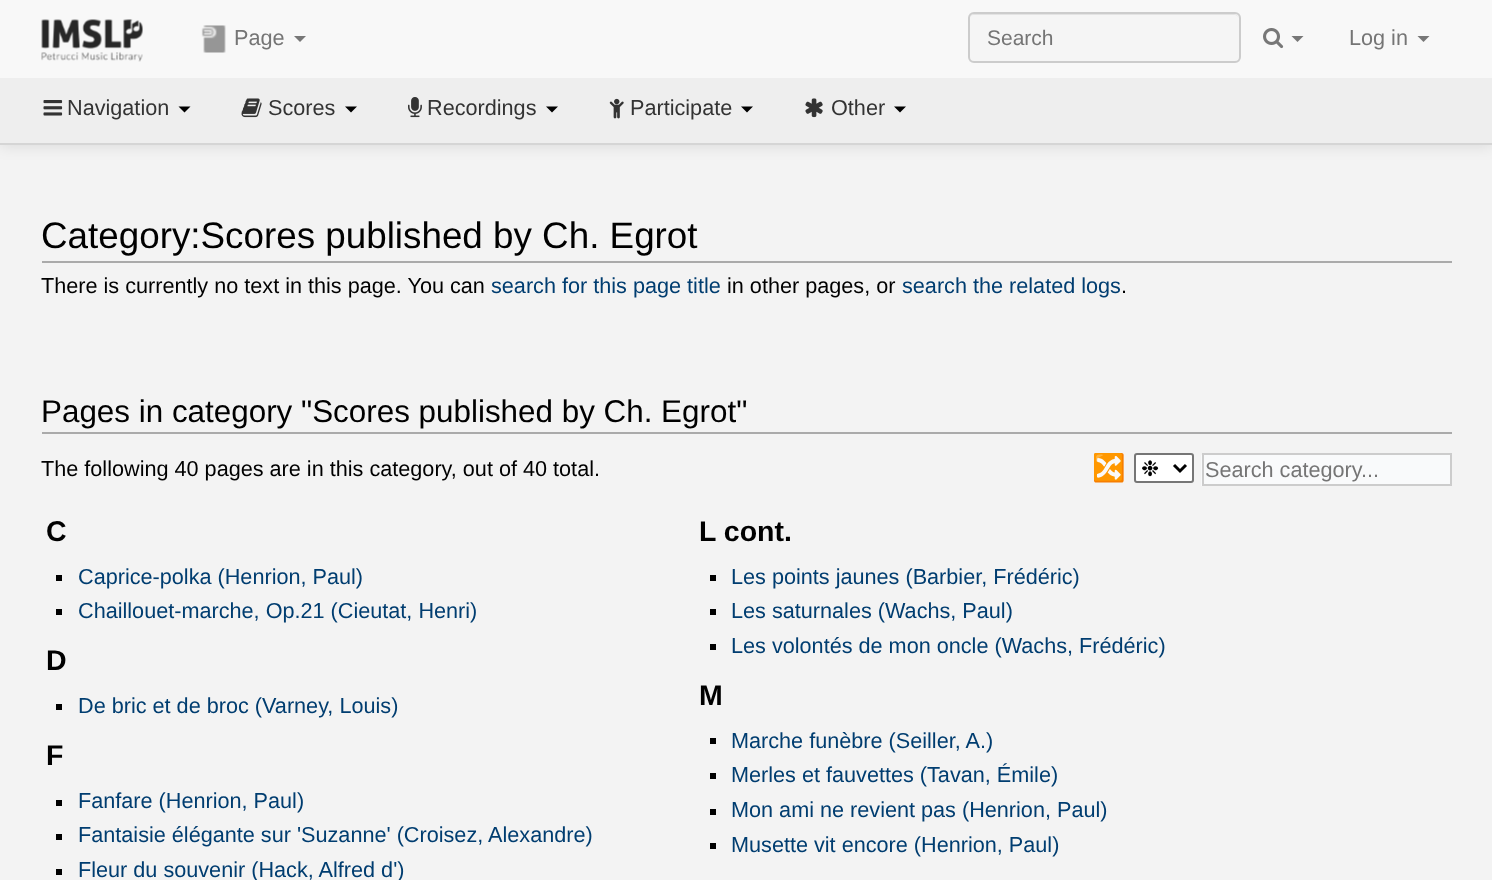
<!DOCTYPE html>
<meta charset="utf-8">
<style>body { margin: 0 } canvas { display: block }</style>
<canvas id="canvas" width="1492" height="880"></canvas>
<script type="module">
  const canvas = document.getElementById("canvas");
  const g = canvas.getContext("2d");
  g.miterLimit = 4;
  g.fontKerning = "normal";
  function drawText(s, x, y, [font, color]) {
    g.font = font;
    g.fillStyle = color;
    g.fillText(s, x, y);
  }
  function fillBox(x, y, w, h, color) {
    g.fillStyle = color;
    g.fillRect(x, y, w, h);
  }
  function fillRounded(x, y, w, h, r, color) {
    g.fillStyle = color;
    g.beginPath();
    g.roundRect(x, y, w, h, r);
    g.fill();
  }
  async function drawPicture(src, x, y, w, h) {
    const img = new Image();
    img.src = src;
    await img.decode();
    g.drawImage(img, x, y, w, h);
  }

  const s1 = ["21.65px Liberation Sans", "#757575"];
  const s2 = ["21px Liberation Sans", "#757575"];
  const s3 = ["21.65px Liberation Sans", "#333333"];
  const s4 = ["36.8px Liberation Sans", "#000000"];
  const s5 = ["21.65px Liberation Sans", "#000000"];
  const s6 = ["21.65px Liberation Sans", "#003D70"];
  const s7 = ["31.4px Liberation Sans", "#000000"];
  const s8 = ["27px Noto Color Emoji", "#003D70"];
  const s9 = ["21.65px DejaVu Sans", "#000000"];
  const s10 = ["bold 28.5px Liberation Sans", "#000000"];

  fillBox(0, 0, 1492, 880, "#F3F3F3");
  g.fillStyle = "rgba(0, 0, 0, 0.1)";
  g.filter = "blur(7.5px)";
  g.beginPath();
  g.rect(0, 80, 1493, 66);
  g.fill();
  g.filter = "none";
  fillBox(0, 0, 1492, 78, "#F8F8F8");
  await drawPicture("pic1.png", 41, 19, 102, 43);
  await drawPicture("pic2.png", 201, 25, 25, 28);
  drawText("Page", 234, 45, s1);
  g.fillStyle = "#777777";
  g.beginPath();
  g.moveTo(294, 36);
  g.lineTo(306, 36);
  g.lineTo(300, 42);
  g.closePath();
  g.fill();
  fillRounded(968, 12, 273, 51, 6, "#F5F5F5");
  g.fillStyle = "#E3E3E3";
  g.beginPath();
  g.moveTo(974, 15);
  g.lineTo(1234, 15);
  g.bezierCurveTo(1237, 15, 1239, 17, 1239, 20);
  g.bezierCurveTo(1239, 17, 1237, 14, 1234, 14);
  g.lineTo(974, 14);
  g.bezierCurveTo(971, 14, 969, 17, 969, 20);
  g.bezierCurveTo(969, 17, 971, 15, 974, 15);
  g.closePath();
  g.fill();
  g.beginPath();
  g.roundRect(969, 13, 271, 49, 5);
  g.strokeStyle = "#CCCCCC";
  g.lineWidth = 2;
  g.stroke();
  drawText("Search", 987, 45, s2);
  await drawPicture("pic3.png", 1263, 28, 21, 21);
  g.fillStyle = "#777777";
  g.beginPath();
  g.moveTo(1291.5, 36);
  g.lineTo(1303.5, 36);
  g.lineTo(1297.5, 42);
  g.closePath();
  g.fill();
  drawText("Log in", 1349, 45, s1);
  g.fillStyle = "#777777";
  g.beginPath();
  g.moveTo(1417.5, 36);
  g.lineTo(1429.5, 36);
  g.lineTo(1423.5, 42);
  g.closePath();
  g.fill();
  fillBox(0, 78, 1492, 65, "#EEEEEE");
  fillBox(0, 143, 1492, 2, "#D5D5D5");
  await drawPicture("pic4.png", 43, 100, 20, 16);
  drawText("Navigation", 67, 115, s3);
  g.fillStyle = "#000000";
  g.beginPath();
  g.moveTo(178.5, 106.5);
  g.lineTo(190.5, 106.5);
  g.lineTo(184.5, 112.5);
  g.closePath();
  g.fill();
  await drawPicture("pic5.png", 241, 98, 21, 20);
  drawText("Scores", 268, 115, s3);
  g.fillStyle = "#000000";
  g.beginPath();
  g.moveTo(345, 106.5);
  g.lineTo(357, 106.5);
  g.lineTo(351, 112.5);
  g.closePath();
  g.fill();
  await drawPicture("pic6.png", 408, 97, 14, 21);
  drawText("Recordings", 427, 115, s3);
  g.fillStyle = "#000000";
  g.beginPath();
  g.moveTo(546, 106.5);
  g.lineTo(558, 106.5);
  g.lineTo(552, 112.5);
  g.closePath();
  g.fill();
  await drawPicture("pic7.png", 609, 98, 15, 21);
  drawText("Participate", 630, 115, s3);
  g.fillStyle = "#000000";
  g.beginPath();
  g.moveTo(741, 106.5);
  g.lineTo(753, 106.5);
  g.lineTo(747, 112.5);
  g.closePath();
  g.fill();
  await drawPicture("pic8.png", 805, 98, 18, 20);
  drawText("Other", 831, 115, s3);
  g.fillStyle = "#000000";
  g.beginPath();
  g.moveTo(894, 106.5);
  g.lineTo(906, 106.5);
  g.lineTo(900, 112.5);
  g.closePath();
  g.fill();
  fillBox(42, 261, 1410, 2, "#AAAAAA");
  drawText("Category:Scores published by Ch. Egrot", 41, 248, s4);
  drawText("There is currently no text in this page. You can", 41, 293, s5);
  drawText("search for this page title", 491, 293, s6);
  drawText("in other pages, or", 727, 293, s5);
  drawText("search the related logs", 902, 293, s6);
  drawText(".", 1121, 293, s5);
  fillBox(42, 432, 1410, 2, "#AAAAAA");
  drawText("Pages in category \"Scores published by Ch. Egrot\"", 41, 422, s7);
  drawText("The following 40 pages are in this category, out of 40 total.", 41, 476, s5);
  drawText("🔀", 1092, 477, s8);
  g.fillStyle = "#FFFFFF";
  g.beginPath();
  g.roundRect(1135, 454, 58, 28, 2);
  g.fill();
  g.strokeStyle = "#767676";
  g.stroke();
  g.beginPath();
  g.moveTo(1174, 465);
  g.lineTo(1180, 471);
  g.lineTo(1186, 465);
  g.strokeStyle = "#000000";
  g.lineWidth = 3;
  g.stroke();
  drawText("❉", 1141, 476, s9);
  fillBox(1201, 455, 249, 31, "#F9FAFB");
  g.strokeStyle = "#CCCCCC";
  g.lineWidth = 2;
  g.strokeRect(1203, 454, 248, 31);
  drawText("Search category...", 1205, 477, s1);
  drawText("C", 46, 541, s10);
  fillBox(56, 575, 6, 6, "#000000");
  drawText("Caprice-polka (Henrion, Paul)", 78, 584, s6);
  fillBox(56, 609, 6, 6, "#000000");
  drawText("Chaillouet-marche, Op.21 (Cieutat, Henri)", 78, 618, s6);
  drawText("D", 46, 670, s10);
  fillBox(56, 704, 6, 6, "#000000");
  drawText("De bric et de broc (Varney, Louis)", 78, 713, s6);
  drawText("F", 46, 765, s10);
  fillBox(56, 800, 6, 6, "#000000");
  drawText("Fanfare (Henrion, Paul)", 78, 808, s6);
  fillBox(56, 834, 6, 6, "#000000");
  drawText("Fantaisie élégante sur 'Suzanne' (Croisez, Alexandre)", 78, 842, s6);
  fillBox(56, 869, 6, 6, "#000000");
  drawText("Fleur du souvenir (Hack, Alfred d')", 78, 877, s6);
  drawText("L cont.", 699, 541, s10);
  fillBox(710, 575, 6, 6, "#000000");
  drawText("Les points jaunes (Barbier, Frédéric)", 731, 584, s6);
  fillBox(710, 609, 6, 6, "#000000");
  drawText("Les saturnales (Wachs, Paul)", 731, 618, s6);
  fillBox(710, 644, 6, 6, "#000000");
  drawText("Les volontés de mon oncle (Wachs, Frédéric)", 731, 653, s6);
  drawText("M", 699, 705, s10);
  fillBox(710, 738, 6, 6, "#000000");
  drawText("Marche funèbre (Seiller, A.)", 731, 748, s6);
  fillBox(710, 773, 6, 6, "#000000");
  drawText("Merles et fauvettes (Tavan, Émile)", 731, 782, s6);
  fillBox(710, 809, 6, 6, "#000000");
  drawText("Mon ami ne revient pas (Henrion, Paul)", 731, 817, s6);
  fillBox(710, 843, 6, 6, "#000000");
  drawText("Musette vit encore (Henrion, Paul)", 731, 852, s6);
</script>
